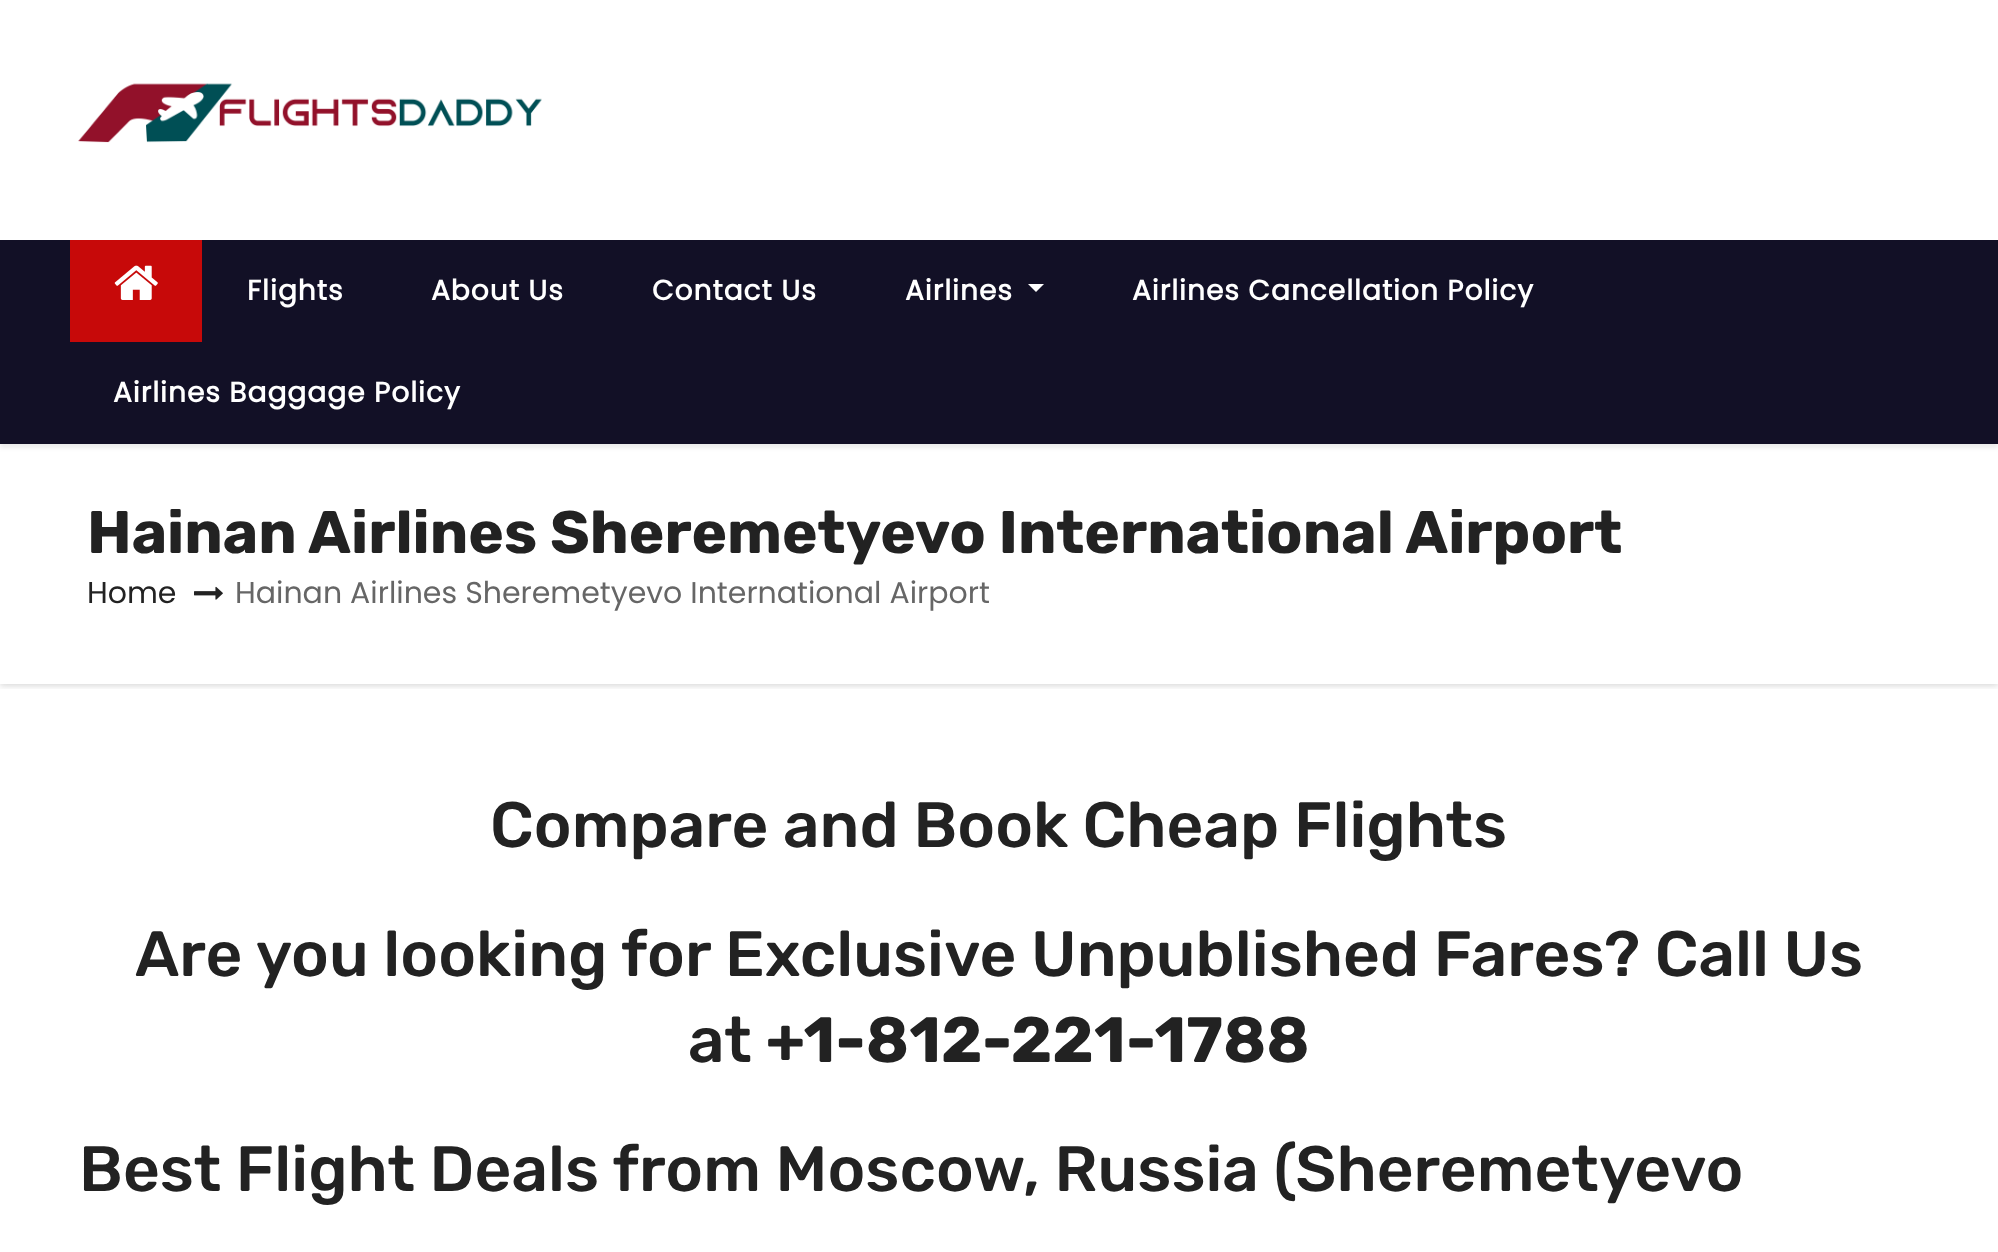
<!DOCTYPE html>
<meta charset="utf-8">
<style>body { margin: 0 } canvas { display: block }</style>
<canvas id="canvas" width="1998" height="1252"></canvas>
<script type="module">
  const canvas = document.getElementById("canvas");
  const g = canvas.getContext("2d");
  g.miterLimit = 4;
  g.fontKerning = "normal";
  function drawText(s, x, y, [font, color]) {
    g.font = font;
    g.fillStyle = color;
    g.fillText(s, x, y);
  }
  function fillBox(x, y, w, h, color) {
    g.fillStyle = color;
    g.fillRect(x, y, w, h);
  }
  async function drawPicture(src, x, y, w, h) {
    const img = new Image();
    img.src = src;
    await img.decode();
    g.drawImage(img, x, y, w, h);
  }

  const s1 = ["bold 28px Poppins", "#FFFFFF"];
  const s2 = ["bold 60px Rubik", "#222222"];
  const s3 = ["30px Poppins", "#222222"];
  const s4 = ["30px Poppins", "#666666"];
  const s5 = ["500 64px Rubik", "#222222"];
  const s6 = ["bold 64px Rubik", "#222222"];

  fillBox(0, 0, 1998, 1252, "#FFFFFF");
  await drawPicture("pic1.png", 78, 83, 464, 60);
  g.fillStyle = "rgba(0, 0, 0, 0.08)";
  g.filter = "blur(2px)";
  g.beginPath();
  g.rect(0, 244, 1998, 204);
  g.fill();
  g.filter = "none";
  g.save();
  g.beginPath();
  g.rect(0, 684, 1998, 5);
  g.clip();
  g.fillStyle = "rgba(0, 0, 0, 0.15)";
  g.filter = "blur(3px)";
  g.beginPath();
  g.rect(0, 446, 1998, 240);
  g.fill();
  g.filter = "none";
  g.restore();
  fillBox(0, 240, 1998, 204, "#121026");
  fillBox(70, 240, 132, 102, "#C70909");
  await drawPicture("pic2.png", 114, 265, 44, 35);
  g.letterSpacing = "1px";
  drawText("Flights", 247, 300, s1);
  drawText("About Us", 431, 300, s1);
  drawText("Contact Us", 652, 300, s1);
  drawText("Airlines", 905, 300, s1);
  g.beginPath();
  g.moveTo(1028, 284);
  g.lineTo(1044, 284);
  g.lineTo(1036, 292);
  g.closePath();
  g.fill();
  drawText("Airlines Cancellation Policy", 1132, 300, s1);
  drawText("Airlines Baggage Policy", 113, 402, s1);
  g.letterSpacing = "0px";
  drawText("Hainan Airlines Sheremetyevo International Airport", 87, 553, s2);
  drawText("Home", 87, 603, s3);
  await drawPicture("pic3.png", 194, 586, 29, 14);
  drawText("Hainan Airlines Sheremetyevo International Airport", 235, 603, s4);
  drawText("Compare and Book Cheap Flights", 490, 847, s5);
  drawText("Are you looking for Exclusive Unpublished Fares? Call Us", 135, 976, s5);
  drawText("at", 688, 1062, s5);
  drawText("+1-812-221-1788", 766, 1062, s6);
  drawText("Best Flight Deals from Moscow, Russia (Sheremetyevo", 79, 1191, s5);
</script>
